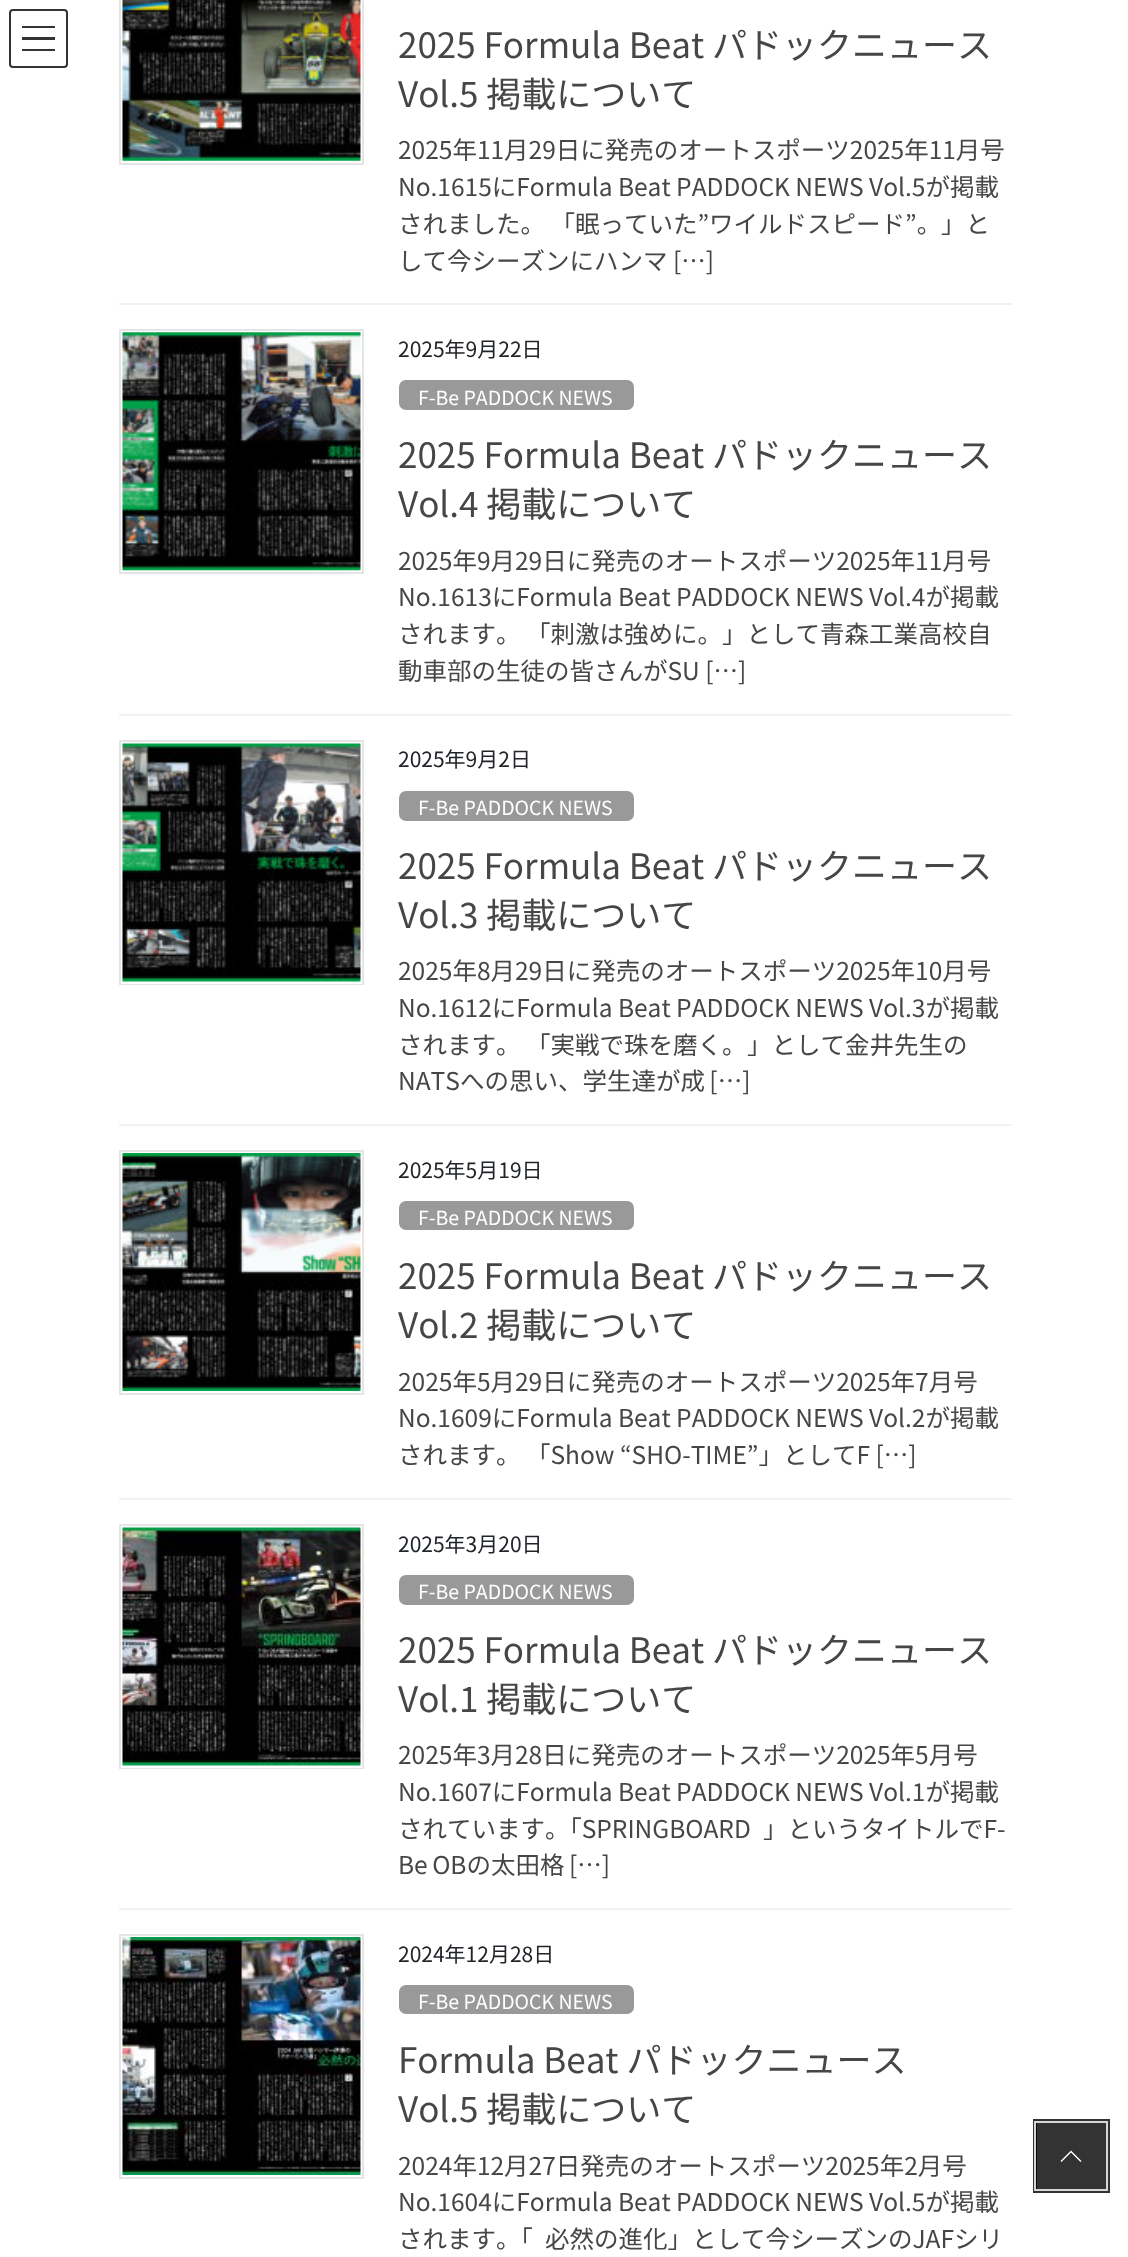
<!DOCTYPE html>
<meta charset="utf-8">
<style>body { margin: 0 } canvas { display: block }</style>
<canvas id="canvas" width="1128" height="2257"></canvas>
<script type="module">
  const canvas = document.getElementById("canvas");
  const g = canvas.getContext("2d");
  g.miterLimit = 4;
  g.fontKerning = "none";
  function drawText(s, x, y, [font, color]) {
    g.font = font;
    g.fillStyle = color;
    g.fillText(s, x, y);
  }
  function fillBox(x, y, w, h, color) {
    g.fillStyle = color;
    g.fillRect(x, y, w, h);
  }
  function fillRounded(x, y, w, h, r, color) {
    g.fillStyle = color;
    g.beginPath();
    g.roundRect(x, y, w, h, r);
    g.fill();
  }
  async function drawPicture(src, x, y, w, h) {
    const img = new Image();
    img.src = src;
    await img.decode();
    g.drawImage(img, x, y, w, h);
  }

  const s1 = ["35px Noto Sans JP", "#464646"];
  const s2 = ["24.5px Noto Sans JP", "#464646"];
  const s3 = ["21px Noto Sans JP", "#212529"];
  const s4 = ["19.5px Noto Sans JP", "#FFFFFF"];

  fillBox(0, 0, 1128, 2257, "#FFFFFF");
  fillBox(22, 26, 33, 2, "#333333");
  fillBox(22, 37, 33, 3, "#333333");
  fillBox(22, 49, 33, 2, "#333333");
  g.beginPath();
  g.roundRect(10, 10, 57, 57, 3);
  g.strokeStyle = "#333333";
  g.lineWidth = 2;
  g.stroke();
  fillBox(119, 303, 893, 2, "#F2F2F2");
  g.strokeStyle = "#E5E5E5";
  g.strokeRect(120, -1, 243, 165);
  await drawPicture("pic1.png", 122, 0, 239, 161);
  drawText("2025 Formula Beat パドックニュース", 398, 58, s1);
  drawText("Vol.5 掲載について", 398, 107, s1);
  drawText("2025年11月29日に発売のオートスポーツ2025年11月号", 398, 159, s2);
  drawText("No.1615にFormula Beat PADDOCK NEWS Vol.5が掲載", 398, 196, s2);
  drawText("されました。 「眠っていた”ワイルドスピード”。", 398, 233, s2);
  drawText("」と", 941, 233, s2);
  drawText("して今シーズンにハンマ […]", 398, 270, s2);
  fillBox(119, 714, 893, 2, "#F2F2F2");
  g.strokeRect(120, 330, 243, 243);
  await drawPicture("pic2.png", 122, 332, 239, 239);
  drawText("2025年9月22日", 398, 357, s3);
  fillRounded(399, 380, 235, 30, 7, "#999999");
  drawText("F-Be PADDOCK NEWS", 418, 405, s4);
  drawText("2025 Formula Beat パドックニュース", 398, 468, s1);
  drawText("Vol.4 掲載について", 398, 517, s1);
  drawText("2025年9月29日に発売のオートスポーツ2025年11月号", 398, 570, s2);
  drawText("No.1613にFormula Beat PADDOCK NEWS Vol.4が掲載", 398, 606, s2);
  drawText("されます。 「刺激は強めに。", 398, 643, s2);
  drawText("」として青森工業高校自", 722, 643, s2);
  drawText("動車部の生徒の皆さんがSU […]", 398, 680, s2);
  fillBox(119, 1124, 893, 2, "#F2F2F2");
  g.strokeRect(120, 741, 243, 243);
  g.strokeStyle = "#FFFFFF";
  g.strokeRect(122, 743, 239, 240);
  await drawPicture("pic3.png", 122, 743, 239, 239);
  drawText("2025年9月2日", 398, 767, s3);
  fillRounded(399, 791, 235, 30, 7, "#999999");
  drawText("F-Be PADDOCK NEWS", 418, 815, s4);
  drawText("2025 Formula Beat パドックニュース", 398, 879, s1);
  drawText("Vol.3 掲載について", 398, 928, s1);
  drawText("2025年8月29日に発売のオートスポーツ2025年10月号", 398, 980, s2);
  drawText("No.1612にFormula Beat PADDOCK NEWS Vol.3が掲載", 398, 1017, s2);
  drawText("されます。 「実戦で珠を磨く。", 398, 1054, s2);
  drawText("」として金井先生の", 747, 1054, s2);
  g.wordSpacing = "-1px";
  drawText("NATSへの思い、学生達が成 […]", 398, 1090, s2);
  fillBox(119, 1498, 893, 2, "#F2F2F2");
  g.strokeStyle = "#E5E5E5";
  g.strokeRect(120, 1151, 243, 243);
  await drawPicture("pic4.png", 122, 1153, 239, 238);
  g.wordSpacing = "0px";
  drawText("2025年5月19日", 398, 1178, s3);
  fillRounded(399, 1201, 235, 29, 7, "#999999");
  drawText("F-Be PADDOCK NEWS", 418, 1225, s4);
  drawText("2025 Formula Beat パドックニュース", 398, 1289, s1);
  drawText("Vol.2 掲載について", 398, 1338, s1);
  drawText("2025年5月29日に発売のオートスポーツ2025年7月号", 398, 1391, s2);
  drawText("No.1609にFormula Beat PADDOCK NEWS Vol.2が掲載", 398, 1427, s2);
  drawText("されます。 「Show “SHO-TIME”」とし", 398, 1464, s2);
  drawText("てF […]", 832, 1464, s2);
  fillBox(119, 1908, 893, 2, "#F2F2F2");
  g.strokeRect(120, 1525, 243, 243);
  g.strokeStyle = "#FFFFFF";
  g.strokeRect(122, 1527, 239, 240);
  await drawPicture("pic5.png", 122, 1527, 239, 239);
  drawText("2025年3月20日", 398, 1552, s3);
  fillRounded(399, 1575, 235, 30, 7, "#999999");
  drawText("F-Be PADDOCK NEWS", 418, 1599, s4);
  drawText("2025 Formula Beat パドックニュース", 398, 1663, s1);
  drawText("Vol.1 掲載について", 398, 1712, s1);
  drawText("2025年3月28日に発売のオートスポーツ2025年5月号", 398, 1764, s2);
  drawText("No.1607にFormula Beat PADDOCK NEWS Vol.1が掲載", 398, 1801, s2);
  drawText("されています。「SPRINGBOARD", 398, 1838, s2);
  drawText("」というタイトルでF-", 763, 1838, s2);
  g.wordSpacing = "-1px";
  drawText("Be OBの太田格 […]", 398, 1874, s2);
  g.strokeStyle = "#E5E5E5";
  g.strokeRect(120, 1935, 243, 243);
  await drawPicture("pic6.png", 122, 1937, 239, 238);
  g.wordSpacing = "0px";
  drawText("2024年12月28日", 398, 1962, s3);
  fillRounded(399, 1985, 235, 29, 7, "#999999");
  drawText("F-Be PADDOCK NEWS", 418, 2009, s4);
  drawText("Formula Beat パドックニュース", 398, 2073, s1);
  drawText("Vol.5 掲載について", 398, 2122, s1);
  drawText("2024年12月27日発売のオートスポーツ2025年2月号", 398, 2175, s2);
  drawText("No.1604にFormula Beat PADDOCK NEWS Vol.5が掲載", 398, 2211, s2);
  drawText("されます。「", 398, 2248, s2);
  drawText("必然の進化」として今シーズンのJAFシリ", 545, 2248, s2);
  g.strokeStyle = "#333333";
  g.lineWidth = 4;
  g.strokeRect(1035, 2121, 73, 70);
  g.strokeStyle = "#D6D6D6";
  g.lineWidth = 2;
  g.strokeRect(1035, 2122, 72, 68);
  fillBox(1036, 2123, 70, 66, "rgba(0, 0, 0, 0.8)");
  g.fillStyle = "#FFFFFF";
  g.beginPath();
  g.moveTo(1081.5, 2161);
  g.lineTo(1080.5, 2162);
  g.lineTo(1071, 2152.5);
  g.lineTo(1061.5, 2162);
  g.lineTo(1060.5, 2161);
  g.lineTo(1071, 2150.5);
  g.closePath();
  g.fill();
</script>
